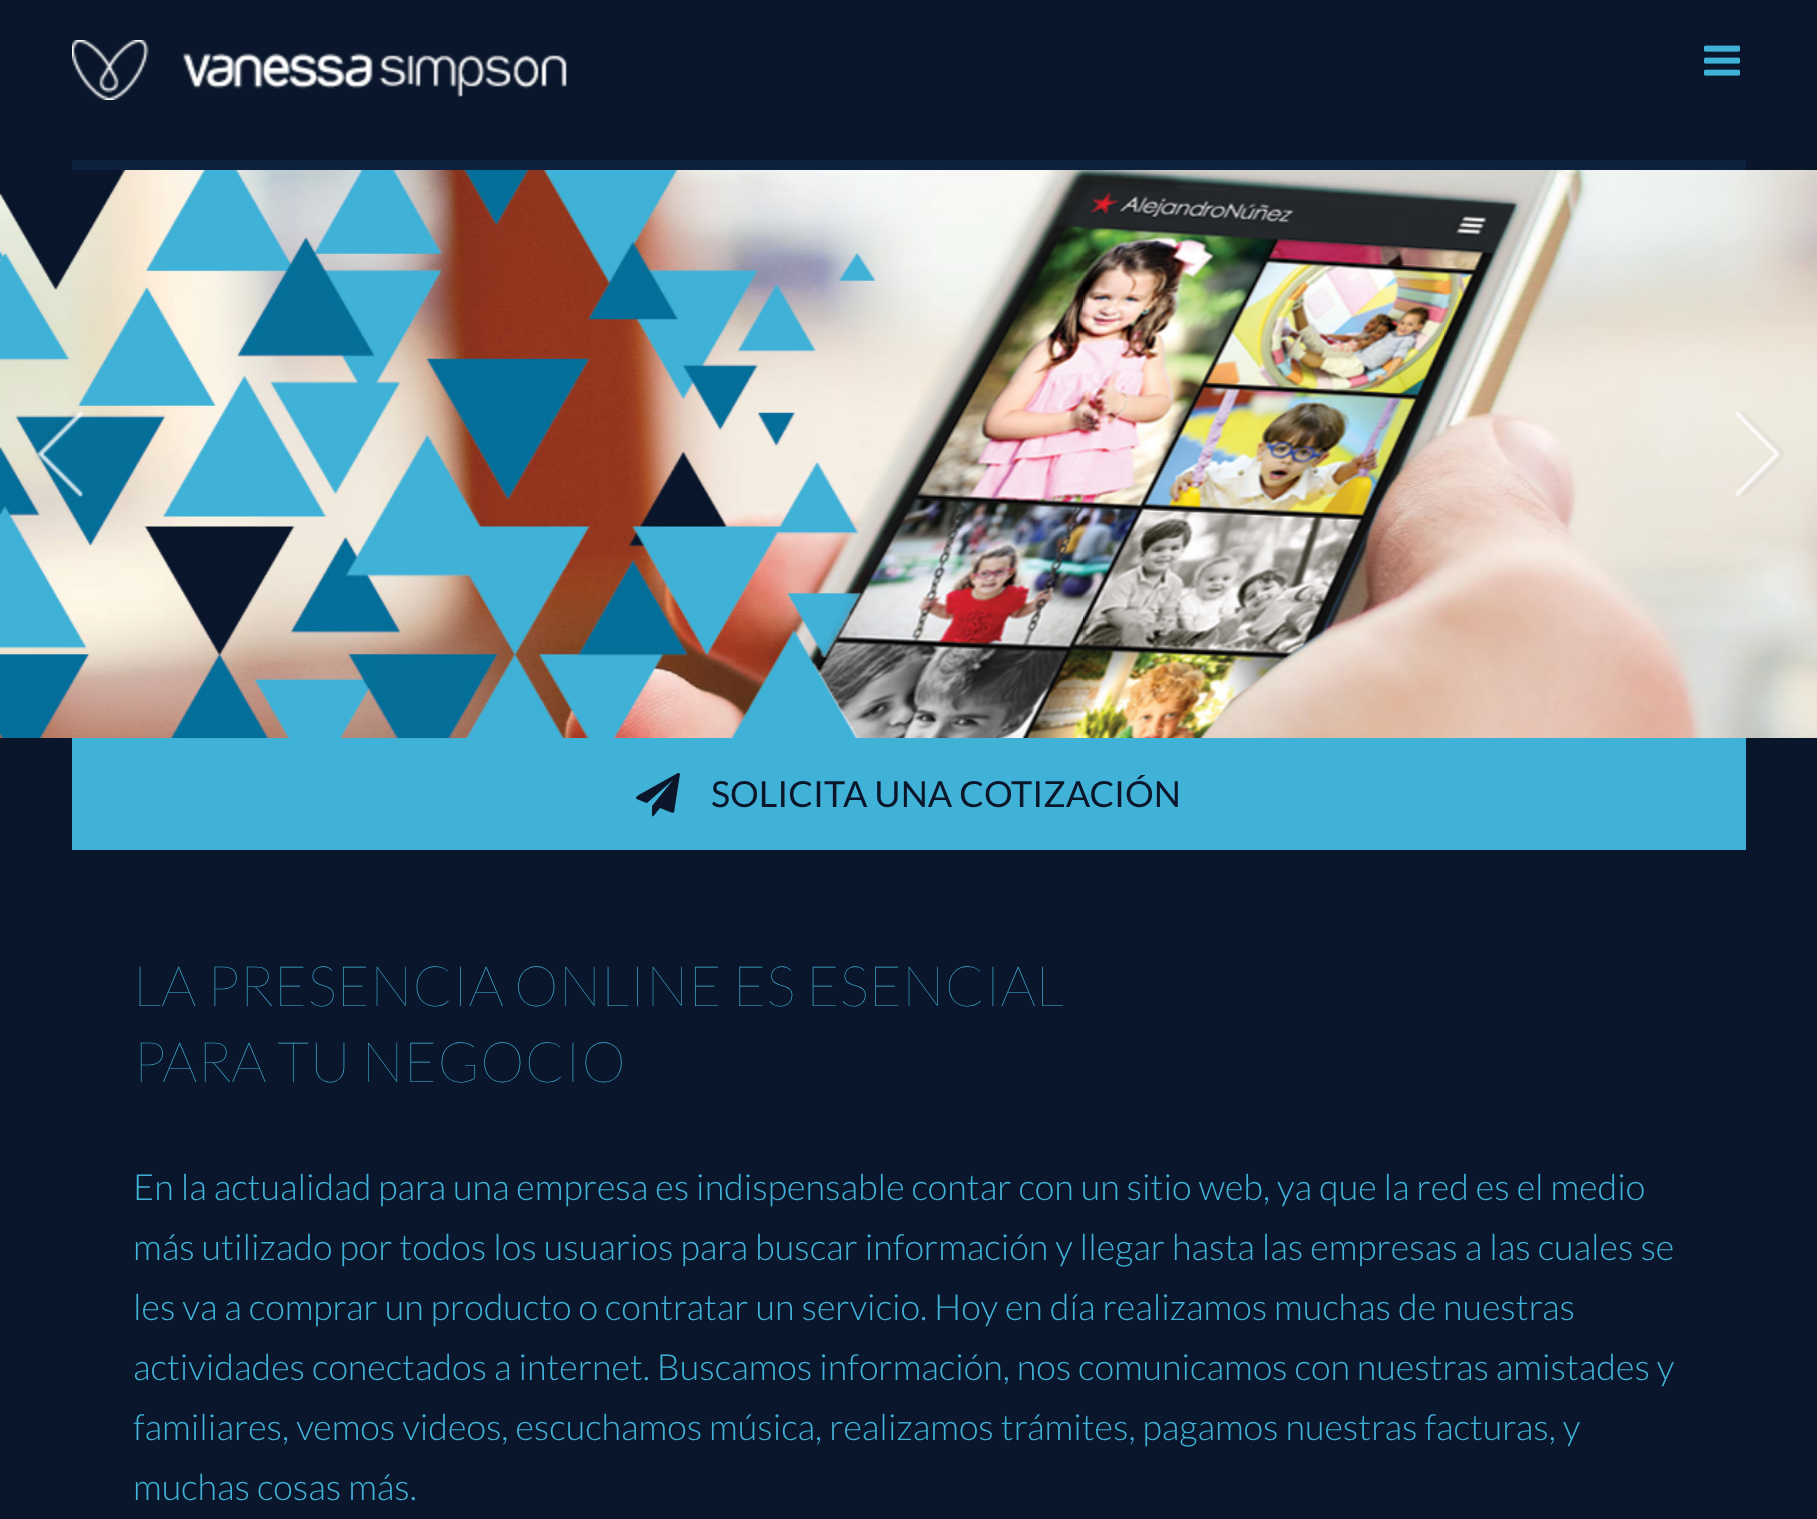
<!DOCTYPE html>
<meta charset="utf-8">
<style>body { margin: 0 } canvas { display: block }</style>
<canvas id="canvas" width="1817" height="1519"></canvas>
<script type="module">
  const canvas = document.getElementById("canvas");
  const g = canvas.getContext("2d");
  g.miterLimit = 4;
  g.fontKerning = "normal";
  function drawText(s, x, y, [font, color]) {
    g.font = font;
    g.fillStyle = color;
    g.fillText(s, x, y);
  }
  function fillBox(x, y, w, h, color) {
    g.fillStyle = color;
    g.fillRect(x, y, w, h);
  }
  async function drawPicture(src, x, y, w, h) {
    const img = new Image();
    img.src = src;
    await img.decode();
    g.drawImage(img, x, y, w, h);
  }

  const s1 = ["36px Lato", "#0B162B"];
  const s2 = ["100 56px Lato", "#40B2D8"];
  const s3 = ["300 36px Lato", "#40B2D8"];

  fillBox(0, 0, 1817, 1519, "#09162B");
  fillBox(72, 160, 1674, 10, "#0D203E");
  await drawPicture("pic1.png", 72, 40, 495, 60);
  await drawPicture("pic2.png", 1704, 45, 36, 31);
  await drawPicture("pic3.png", 0, 170, 1817, 568);
  await drawPicture("pic4.png", 34, 411, 49, 86);
  await drawPicture("pic5.png", 1735, 411, 49, 86);
  fillBox(72, 738, 1674, 112, "#40B2D8");
  g.fillStyle = "#0B162B";
  g.beginPath();
  g.moveTo(679, 773);
  g.lineTo(680, 774);
  g.lineTo(675, 806);
  g.bezierCurveTo(674, 812, 675, 814, 670, 812);
  g.lineTo(660, 808);
  g.bezierCurveTo(651, 819, 652, 820, 652, 806);
  g.lineTo(673, 780);
  g.lineTo(647, 803);
  g.bezierCurveTo(635, 798, 631, 799, 644, 792);
  g.lineTo(678, 773);
  g.closePath();
  g.fill();
  drawText("SOLICITA UNA COTIZACIÓN", 711, 807, s1);
  drawText("LA PRESENCIA ONLINE ES ESENCIAL", 133, 1006, s2);
  drawText("PARA TU NEGOCIO", 133, 1082, s2);
  drawText("En la actualidad para una empresa es indispensable contar con un sitio web, ya que la red es el medio", 133, 1200, s3);
  drawText("más utilizado por todos los usuarios para buscar información y llegar hasta las empresas a las cuales se", 133, 1260, s3);
  drawText("les va a comprar un producto o contratar un servicio. Hoy en día realizamos muchas de nuestras", 133, 1320, s3);
  drawText("actividades conectados a internet. Buscamos información, nos comunicamos con nuestras amistades y", 133, 1380, s3);
  drawText("familiares, vemos videos, escuchamos música, realizamos trámites, pagamos nuestras facturas, y", 133, 1440, s3);
  drawText("muchas cosas más.", 133, 1500, s3);
</script>
